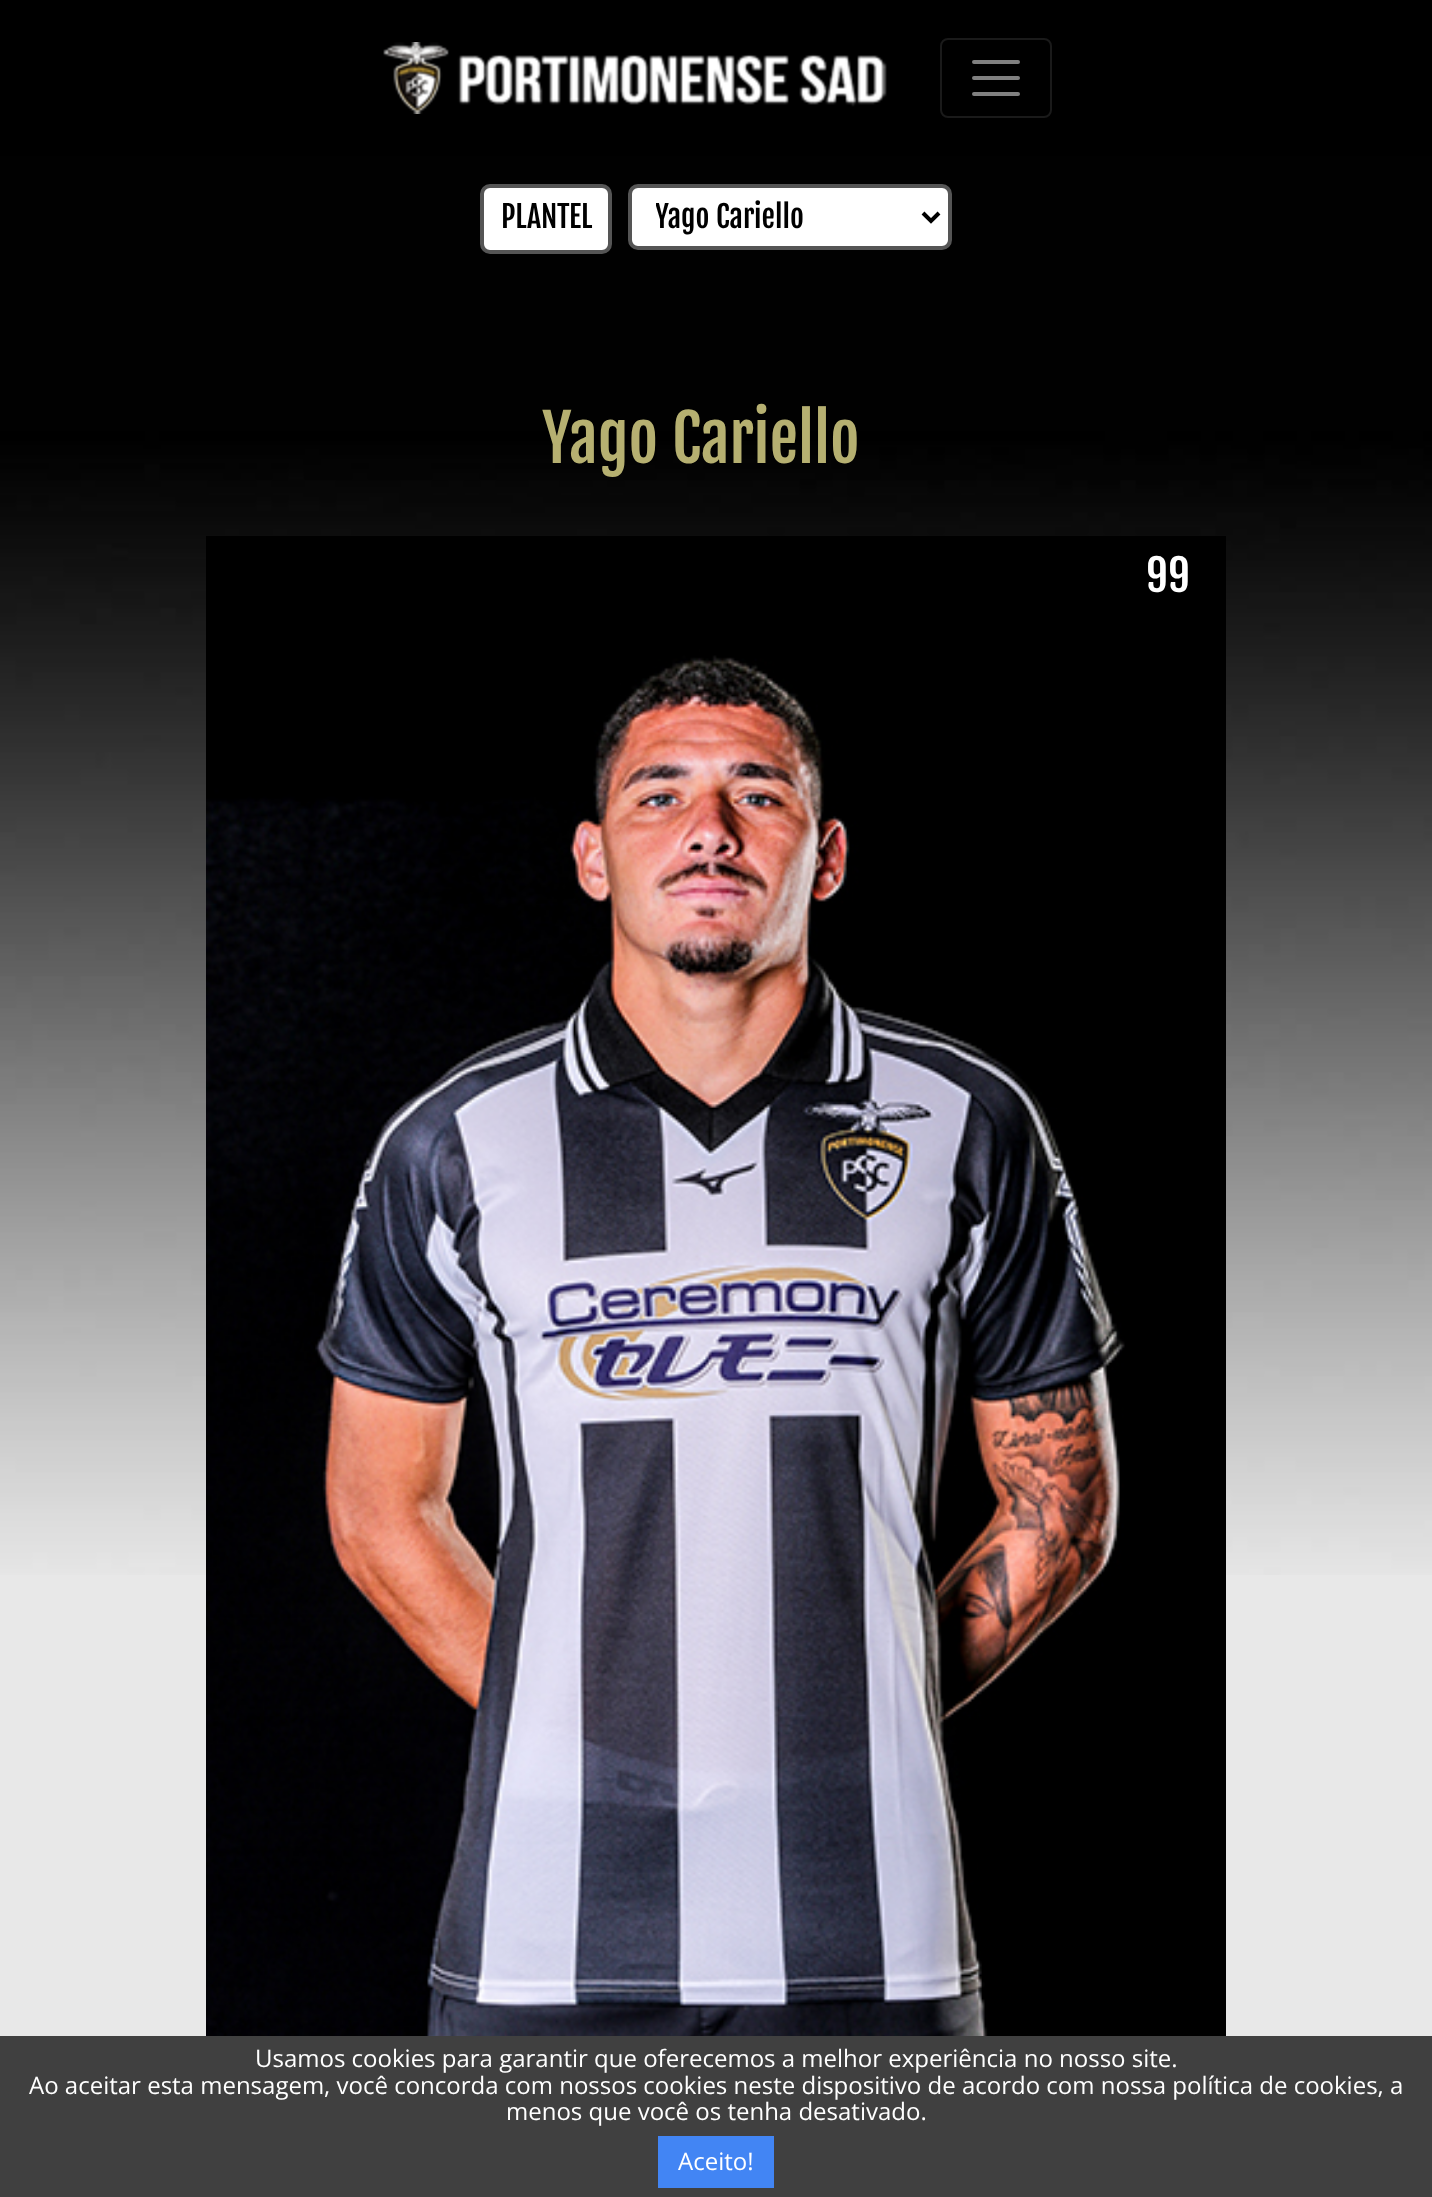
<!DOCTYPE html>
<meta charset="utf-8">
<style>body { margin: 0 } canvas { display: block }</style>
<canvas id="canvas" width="1432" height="2197"></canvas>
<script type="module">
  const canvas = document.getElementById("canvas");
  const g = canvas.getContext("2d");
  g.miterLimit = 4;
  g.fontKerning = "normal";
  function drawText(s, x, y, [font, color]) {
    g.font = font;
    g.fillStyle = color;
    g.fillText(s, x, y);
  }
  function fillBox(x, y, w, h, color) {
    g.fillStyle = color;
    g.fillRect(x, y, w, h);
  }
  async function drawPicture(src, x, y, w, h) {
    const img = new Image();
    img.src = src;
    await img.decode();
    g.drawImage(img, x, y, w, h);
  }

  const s1 = ["30px Fjalla One", "#000000"];
  const s2 = ["64px Fjalla One", "#B6B071"];
  const s3 = ["43px Fjalla One", "#FFFFFF"];
  const s4 = ["24px Open Sans", "#FFFFFF"];

  fillBox(0, 0, 1432, 2197, "#E8E8E8");
  await drawPicture("pic1.png", 0, 156, 1432, 1419);
  fillBox(0, 0, 1432, 156, "#000000");
  await drawPicture("pic2.png", 383, 42, 504, 72);
  g.beginPath();
  g.roundRect(941, 39, 110, 78, 7);
  g.strokeStyle = "#1A1A1A";
  g.lineWidth = 2;
  g.stroke();
  g.beginPath();
  g.moveTo(974, 62);
  g.lineTo(1018, 62);
  g.moveTo(974, 78);
  g.lineTo(1018, 78);
  g.moveTo(974, 94);
  g.lineTo(1018, 94);
  g.strokeStyle = "#808080";
  g.lineWidth = 4;
  g.lineCap = "round";
  g.stroke();
  g.fillStyle = "#FFFFFF";
  g.beginPath();
  g.roundRect(482, 186, 128, 66, 8);
  g.fill();
  g.strokeStyle = "#555555";
  g.stroke();
  drawText("PLANTEL", 501, 228, s1);
  g.fillStyle = "#FFFFFF";
  g.beginPath();
  g.roundRect(630, 186, 320, 62, 8);
  g.fill();
  g.stroke();
  g.beginPath();
  g.moveTo(923, 213);
  g.lineTo(931, 221);
  g.lineTo(939, 213);
  g.strokeStyle = "#000000";
  g.lineCap = "butt";
  g.stroke();
  g.save();
  g.beginPath();
  g.rect(656, 196, 244, 42);
  g.clip();
  drawText("Yago Cariello", 655, 228, s1);
  g.restore();
  drawText("Yago Cariello", 542, 463, s2);
  await drawPicture("pic3.png", 206, 536, 1020, 1500);
  drawText("99", 1146, 592, s3);
  fillBox(0, 2036, 1432, 161, "#404040");
  drawText("Usamos cookies para garantir que oferecemos a melhor experiência no nosso site.", 255, 2067, s4);
  drawText("Ao aceitar esta mensagem, você concorda com nossos cookies neste dispositivo de acordo com nossa política de cookies, a", 29, 2094, s4);
  drawText("menos que você os tenha desativado.", 506, 2120, s4);
  fillBox(658, 2136, 116, 52, "#4285F4");
  drawText("Aceito!", 678, 2170, s4);
</script>
